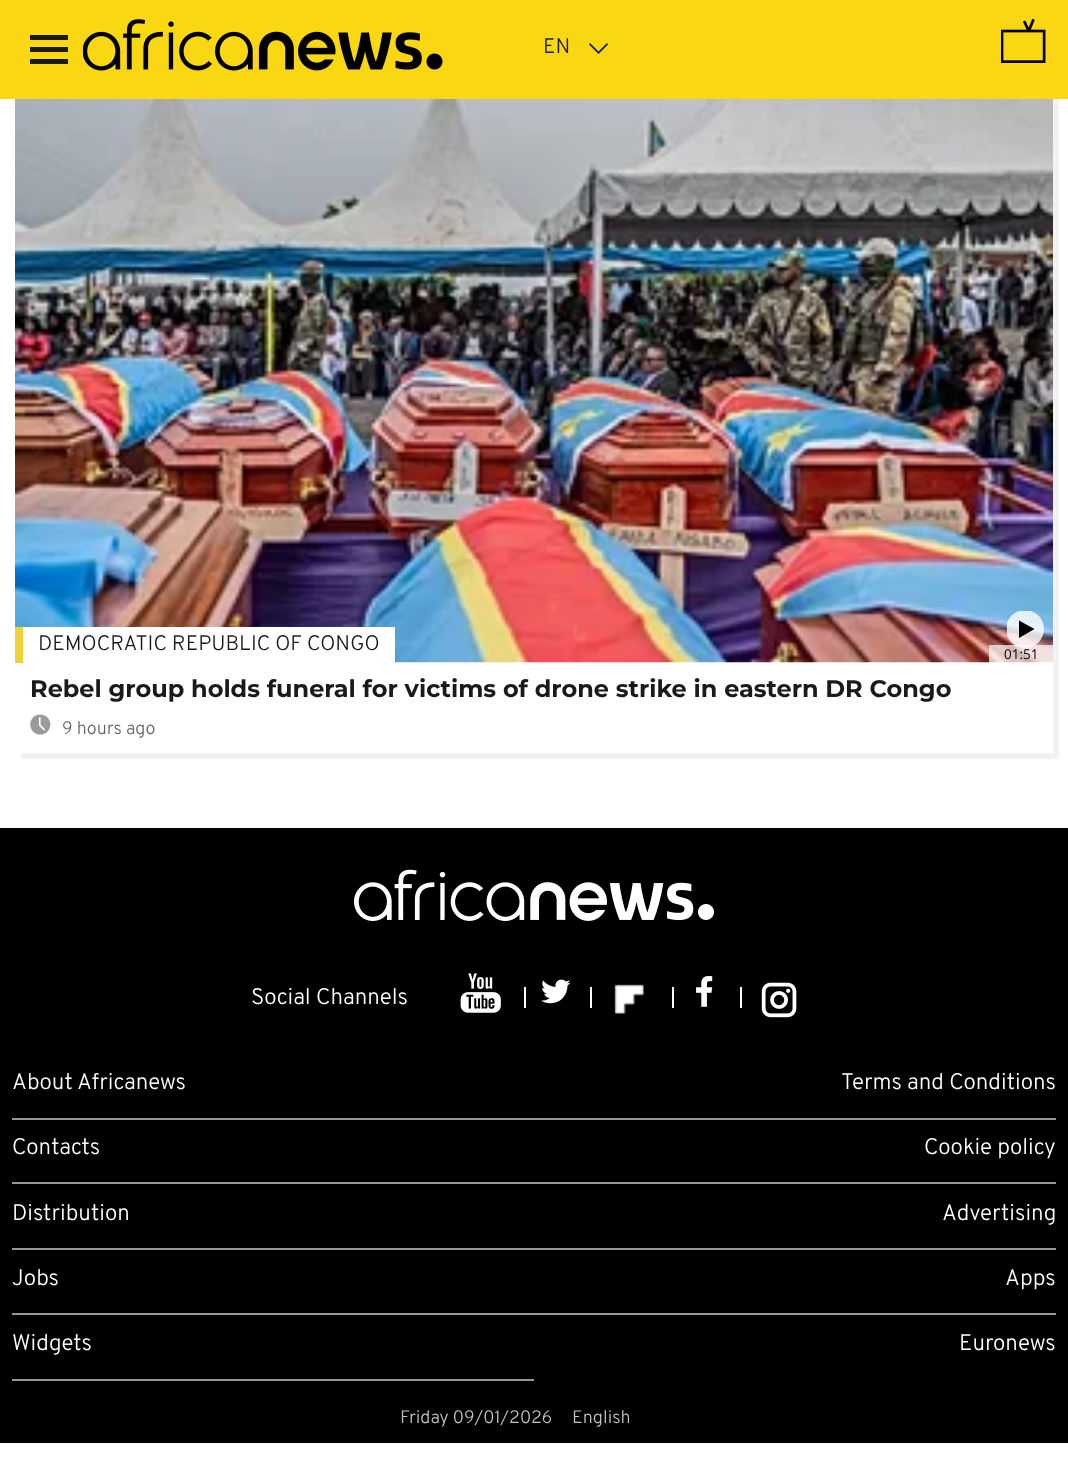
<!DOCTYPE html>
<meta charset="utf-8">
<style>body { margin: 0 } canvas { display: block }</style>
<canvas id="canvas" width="1068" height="1466"></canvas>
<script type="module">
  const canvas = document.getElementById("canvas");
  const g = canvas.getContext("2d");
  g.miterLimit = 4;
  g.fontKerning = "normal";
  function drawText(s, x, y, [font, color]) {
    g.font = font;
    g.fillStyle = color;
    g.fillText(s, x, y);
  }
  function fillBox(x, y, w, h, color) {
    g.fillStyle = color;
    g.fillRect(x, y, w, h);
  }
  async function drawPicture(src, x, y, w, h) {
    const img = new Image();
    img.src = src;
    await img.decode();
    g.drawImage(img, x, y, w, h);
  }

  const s1 = ["300 21px Overpass", "#1A1A1A"];
  const s2 = ["100 24px Montserrat", "#1A1A1A"];
  const s3 = ["300 18px Overpass", "#666666"];
  const s4 = ["13.5px Open Sans", "#000000"];
  const s5 = ["300 22.5px Overpass", "#FFFFFF"];
  const s6 = ["300 18px Overpass", "#C2C2C2"];

  fillBox(0, 0, 1068, 1466, "#FFFFFF");
  g.fillStyle = "#F2F2F2";
  g.beginPath();
  g.moveTo(21, 753);
  g.lineTo(21, 759);
  g.lineTo(1059, 759);
  g.lineTo(1059, 86);
  g.lineTo(1053, 86);
  g.lineTo(1053, 753);
  g.closePath();
  g.fill();
  fillBox(0, 0, 1068, 99, "#F9D713");
  fillBox(30, 47, 38, 5, "#1A1A1A");
  fillBox(30, 35, 38, 5, "#1A1A1A");
  fillBox(30, 59, 38, 5, "#1A1A1A");
  await drawPicture("pic1.png", 83, 19, 360, 52);
  drawText("EN", 543, 53, s1);
  g.beginPath();
  g.moveTo(597.5, 52.5);
  g.lineTo(607, 43);
  g.lineTo(608, 44.5);
  g.lineTo(598.5, 54);
  g.closePath();
  g.fill();
  g.beginPath();
  g.moveTo(589, 44.5);
  g.lineTo(590, 43);
  g.lineTo(599.5, 52.5);
  g.lineTo(598.5, 54);
  g.closePath();
  g.fill();
  await drawPicture("pic2.png", 1001, 18, 45, 45);
  await drawPicture("pic4.png", 15, 99, 1038, 564);
  fillBox(23, 627, 372, 36, "#FFFFFF");
  fillBox(15, 627, 8, 36, "#F0D138");
  drawText("DEMOCRATIC REPUBLIC OF CONGO", 38, 650, s1);
  drawText("Rebel group holds funeral for victims of drone strike in eastern DR Congo", 30, 697, s2);
  await drawPicture("pic3.png", 30, 714, 21, 21);
  drawText("9 hours ago", 62, 734, s3);
  fillBox(989, 645, 64, 18, "rgba(255, 255, 255, 0.7)");
  g.save();
  g.beginPath();
  g.rect(1007, 611, 37, 37);
  g.clip();
  g.fillStyle = "rgba(255, 255, 255, 0.8)";
  g.beginPath();
  g.arc(1025, 629, 19, 0, Math.PI * 2);
  g.fill();
  g.restore();
  g.fillStyle = "#000000";
  g.beginPath();
  g.moveTo(1034.5, 629);
  g.lineTo(1019, 638);
  g.lineTo(1019, 620.5);
  g.closePath();
  g.fill();
  drawText("01:51", 1004, 659, s4);
  fillBox(0, 828, 1068, 615, "#000000");
  await drawPicture("pic5.png", 354, 869, 360, 52);
  drawText("Social Channels", 251, 1004, s5);
  await drawPicture("pic6.png", 460, 973, 41, 40);
  fillBox(524, 987, 2, 21, "#FFFFFF");
  fillBox(590, 987, 2, 21, "#FFFFFF");
  await drawPicture("pic7.png", 541, 979, 30, 25);
  await drawPicture("pic8.png", 614, 984, 30, 30);
  fillBox(672, 987, 2, 21, "#FFFFFF");
  fillBox(740, 987, 2, 21, "#FFFFFF");
  await drawPicture("pic9.png", 696, 976, 17, 31);
  await drawPicture("pic10.png", 761, 982, 36, 36);
  fillBox(12, 1118, 1044, 2, "#979797");
  drawText("About Africanews", 12, 1089, s5);
  drawText("Terms and Conditions", 841, 1089, s5);
  fillBox(12, 1182, 1044, 2, "#979797");
  drawText("Contacts", 12, 1154, s5);
  drawText("Cookie policy", 924, 1154, s5);
  fillBox(12, 1248, 1044, 2, "#979797");
  drawText("Distribution", 12, 1220, s5);
  drawText("Advertising", 942, 1220, s5);
  fillBox(12, 1313, 1044, 2, "#979797");
  drawText("Jobs", 12, 1285, s5);
  drawText("Apps", 1005, 1285, s5);
  fillBox(12, 1379, 522, 2, "#979797");
  drawText("Widgets", 12, 1350, s5);
  drawText("Euronews", 959, 1350, s5);
  drawText("Friday 09/01/2026", 400, 1423, s6);
  drawText("English", 572, 1423, s6);
</script>
